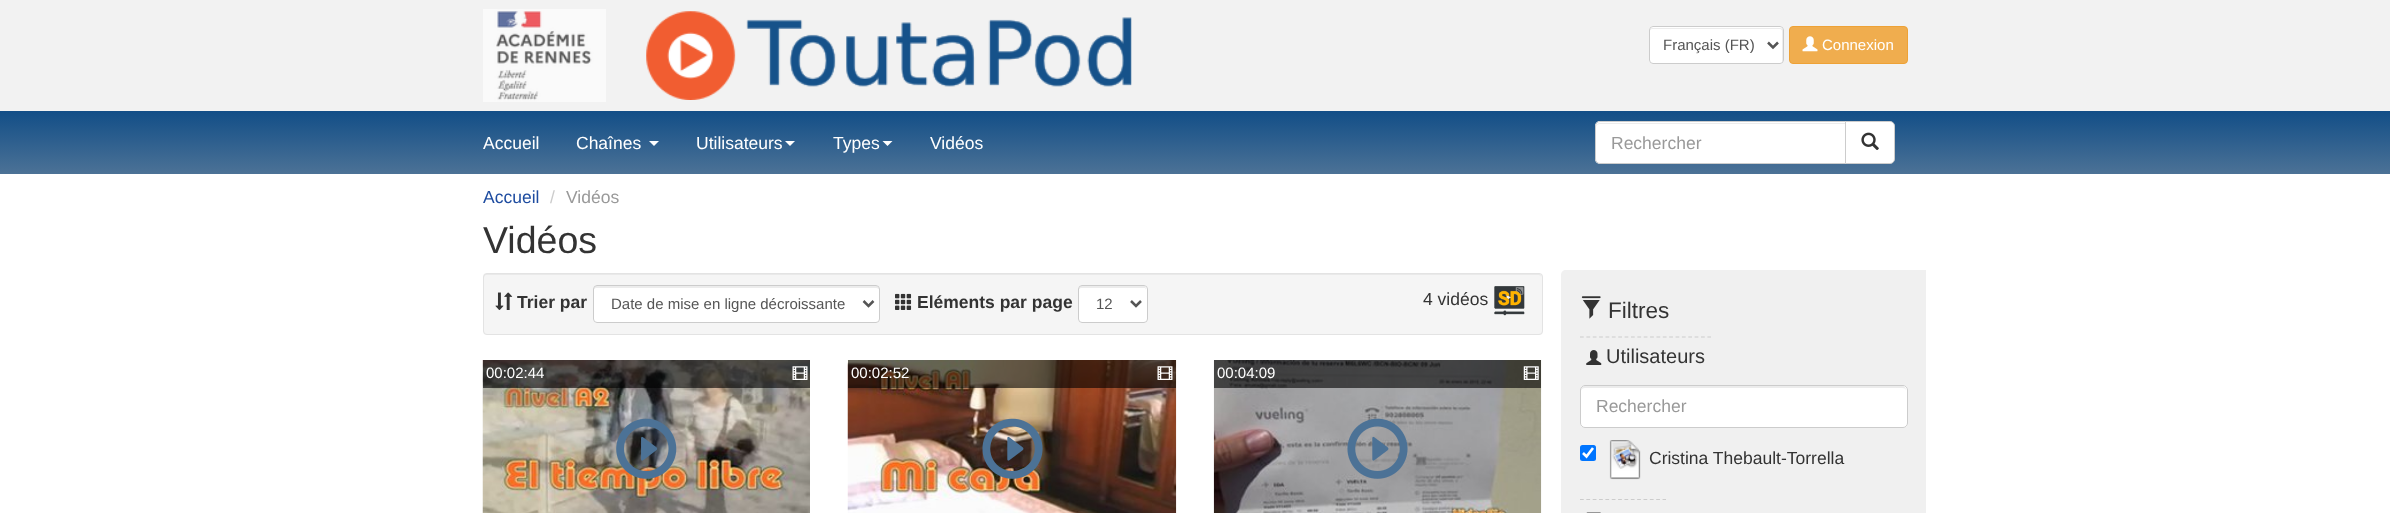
<!DOCTYPE html>
<meta charset="utf-8">
<style>body { margin: 0 } canvas { display: block }</style>
<canvas id="canvas" width="2390" height="513"></canvas>
<script type="module">
  const canvas = document.getElementById("canvas");
  const g = canvas.getContext("2d");
  g.miterLimit = 4;
  g.fontKerning = "normal";
  function drawText(s, x, y, [font, color]) {
    g.font = font;
    g.fillStyle = color;
    g.fillText(s, x, y);
  }
  function fillBox(x, y, w, h, color) {
    g.fillStyle = color;
    g.fillRect(x, y, w, h);
  }
  function fillRounded(x, y, w, h, r, color) {
    g.fillStyle = color;
    g.beginPath();
    g.roundRect(x, y, w, h, r);
    g.fill();
  }
  async function drawPicture(src, x, y, w, h) {
    const img = new Image();
    img.src = src;
    await img.decode();
    g.drawImage(img, x, y, w, h);
  }
  let gradient;

  const s1 = ["15px Liberation Sans", "#555555"];
  const s2 = ["15px Liberation Sans", "#FFFFFF"];
  const s3 = ["17.5px Liberation Sans", "#FFFFFF"];
  const s4 = ["17.5px Liberation Sans", "#999999"];
  const s5 = ["17.5px Liberation Sans", "#1E4CA0"];
  const s6 = ["17.5px Liberation Sans", "#CCCCCC"];
  const s7 = ["37.5px Liberation Sans", "#333333"];
  const s8 = ["bold 17.5px Liberation Sans", "#333333"];
  const s9 = ["17.5px Liberation Sans", "#333333"];
  const s10 = ["22.5px Liberation Sans", "#333333"];
  const s11 = ["20px Liberation Sans", "#333333"];

  fillBox(0, 0, 2390, 513, "#FFFFFF");
  fillBox(0, 0, 2390, 111, "#F2F2F2");
  await drawPicture("pic1.png", 483, 9, 123, 93);
  await drawPicture("pic2.png", 646, 11, 486, 89);
  fillRounded(1649, 26, 135, 38, 4, "#FFFFFF");
  g.fillStyle = "#ECECEC";
  g.beginPath();
  g.moveTo(1652, 29);
  g.lineTo(1780, 29);
  g.bezierCurveTo(1781, 29, 1782, 30, 1782, 31);
  g.lineTo(1782, 63);
  g.bezierCurveTo(1782, 62, 1783, 61, 1783, 60);
  g.lineTo(1783, 30);
  g.bezierCurveTo(1783, 29, 1782, 28, 1780, 28);
  g.lineTo(1652, 28);
  g.bezierCurveTo(1651, 28, 1650, 29, 1650, 30);
  g.lineTo(1650, 31);
  g.bezierCurveTo(1650, 30, 1651, 29, 1652, 29);
  g.closePath();
  g.fill();
  g.beginPath();
  g.roundRect(1649.5, 26.5, 134, 37, 3.5);
  g.strokeStyle = "#CCCCCC";
  g.stroke();
  g.beginPath();
  g.moveTo(1768, 42.5);
  g.lineTo(1773, 47.5);
  g.lineTo(1778, 42.5);
  g.strokeStyle = "#555555";
  g.lineWidth = 2.5;
  g.stroke();
  drawText("Français (FR)", 1663, 50, s1);
  g.fillStyle = "#F0AD4E";
  g.beginPath();
  g.roundRect(1789.5, 26.5, 118, 37, 3.5);
  g.fill();
  g.strokeStyle = "#EEA236";
  g.lineWidth = 1;
  g.stroke();
  await drawPicture("pic3.png", 1802, 36, 16, 16);
  drawText("Connexion", 1822, 50, s2);
  gradient = g.createLinearGradient(1195, 111, 1195, 174);
  gradient.addColorStop(0, "#124E87");
  gradient.addColorStop(1, "#4C7296");
  g.fillStyle = gradient;
  g.fillRect(0, 111, 2390, 63);
  drawText("Accueil", 483, 149, s3);
  drawText("Chaînes", 576, 149, s3);
  g.beginPath();
  g.moveTo(649, 141);
  g.lineTo(659, 141);
  g.lineTo(654, 146);
  g.closePath();
  g.fill();
  drawText("Utilisateurs", 696, 149, s3);
  g.beginPath();
  g.moveTo(785, 141);
  g.lineTo(795, 141);
  g.lineTo(790, 146);
  g.closePath();
  g.fill();
  drawText("Types", 833, 149, s3);
  g.beginPath();
  g.moveTo(882.5, 141);
  g.lineTo(892.5, 141);
  g.lineTo(887.5, 146);
  g.closePath();
  g.fill();
  drawText("Vidéos", 930, 149, s3);
  g.beginPath();
  g.roundRect(1595, 121, 251, 43, [5, 0, 0, 5]);
  g.fill();
  g.fillStyle = "#ECECEC";
  g.beginPath();
  g.moveTo(1600, 124);
  g.lineTo(1845, 124);
  g.lineTo(1845, 123);
  g.lineTo(1600, 123);
  g.bezierCurveTo(1598, 123, 1596, 125, 1596, 127);
  g.lineTo(1596, 128);
  g.bezierCurveTo(1596, 125, 1598, 124, 1600, 124);
  g.closePath();
  g.fill();
  g.beginPath();
  g.roundRect(1595.5, 121.5, 250, 42, [4.5, 0, 0, 4.5]);
  g.strokeStyle = "#CCCCCC";
  g.stroke();
  drawText("Rechercher", 1611, 149, s4);
  g.fillStyle = "#FFFFFF";
  g.beginPath();
  g.roundRect(1845.5, 121.5, 49, 42, [0, 4.5, 4.5, 0]);
  g.fill();
  g.stroke();
  await drawPicture("pic4.png", 1861, 132, 18, 18);
  drawText("Accueil", 483, 203, s5);
  drawText("/", 550, 203, s6);
  drawText("Vidéos", 566, 203, s4);
  drawText("Vidéos", 483, 253, s7);
  fillRounded(483, 273, 1060, 62, 4, "#F5F5F5");
  g.fillStyle = "#E9E9E9";
  g.beginPath();
  g.moveTo(486, 275);
  g.lineTo(1539, 275);
  g.bezierCurveTo(1540, 275, 1541, 276, 1541, 278);
  g.bezierCurveTo(1541, 276, 1541, 274, 1538, 274);
  g.lineTo(486, 274);
  g.bezierCurveTo(484, 274, 484, 276, 484, 278);
  g.bezierCurveTo(484, 276, 485, 275, 486, 275);
  g.closePath();
  g.fill();
  g.beginPath();
  g.roundRect(483.5, 273.5, 1059, 61, 3.5);
  g.strokeStyle = "#E3E3E3";
  g.stroke();
  await drawPicture("pic5.png", 495, 292, 18, 18);
  drawText("Trier par", 517, 308, s8);
  fillRounded(593, 285, 287, 38, 4, "#FFFFFF");
  g.fillStyle = "#ECECEC";
  g.beginPath();
  g.moveTo(596, 288);
  g.lineTo(876, 288);
  g.bezierCurveTo(878, 288, 879, 289, 879, 290);
  g.bezierCurveTo(879, 288, 879, 286, 876, 286);
  g.lineTo(596, 286);
  g.bezierCurveTo(594, 286, 594, 288, 594, 290);
  g.bezierCurveTo(594, 289, 595, 288, 596, 288);
  g.closePath();
  g.fill();
  g.beginPath();
  g.roundRect(593.5, 285.5, 286, 37, 3.5);
  g.strokeStyle = "#CCCCCC";
  g.stroke();
  g.beginPath();
  g.moveTo(863.5, 301);
  g.lineTo(868.5, 306);
  g.lineTo(873.5, 301);
  g.strokeStyle = "#555555";
  g.lineWidth = 2.5;
  g.stroke();
  drawText("Date de mise en ligne décroissante", 611, 309, s1);
  await drawPicture("pic6.png", 895, 293, 17, 17);
  drawText("Eléments par page", 917, 308, s8);
  fillRounded(1078, 285, 70, 38, 4, "#FFFFFF");
  g.fillStyle = "#ECECEC";
  g.beginPath();
  g.moveTo(1081, 288);
  g.lineTo(1145, 288);
  g.lineTo(1146, 290);
  g.bezierCurveTo(1146, 283, 1139, 286, 1133, 286);
  g.lineTo(1092, 286);
  g.bezierCurveTo(1086, 286, 1079, 283, 1079, 290);
  g.bezierCurveTo(1079, 289, 1080, 288, 1081, 288);
  g.closePath();
  g.fill();
  g.beginPath();
  g.roundRect(1078.5, 285.5, 69, 37, 3.5);
  g.strokeStyle = "#CCCCCC";
  g.lineWidth = 1;
  g.stroke();
  g.beginPath();
  g.moveTo(1131, 301);
  g.lineTo(1136, 306);
  g.lineTo(1141, 301);
  g.strokeStyle = "#555555";
  g.lineWidth = 2.5;
  g.stroke();
  drawText("12", 1096, 309, s1);
  drawText("4 vidéos", 1423, 305, s9);
  await drawPicture("pic7.png", 1494, 286, 31, 30);
  await drawPicture("pic8.png", 482, 360, 328, 153);
  fillBox(483, 360, 327, 28, "rgba(0, 0, 0, 0.6)");
  drawText("00:02:44", 486, 378, s2);
  await drawPicture("pic9.png", 792, 366, 16, 14);
  await drawPicture("pic10.png", 616, 418, 61, 61);
  await drawPicture("pic11.png", 847, 360, 330, 153);
  fillBox(848, 360, 328, 28, "rgba(0, 0, 0, 0.6)");
  drawText("00:02:52", 851, 378, s2);
  await drawPicture("pic12.png", 1157, 366, 16, 14);
  await drawPicture("pic13.png", 982, 418, 61, 61);
  await drawPicture("pic14.png", 1213, 360, 329, 153);
  fillBox(1214, 360, 327, 28, "rgba(0, 0, 0, 0.6)");
  drawText("00:04:09", 1217, 378, s2);
  await drawPicture("pic15.png", 1523, 366, 16, 14);
  await drawPicture("pic16.png", 1347, 418, 61, 61);
  g.fillStyle = "#F0F0F0";
  g.beginPath();
  g.moveTo(1566, 270);
  g.lineTo(1926, 270);
  g.lineTo(1926, 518);
  g.lineTo(1566, 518);
  g.bezierCurveTo(1563, 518, 1561, 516, 1561, 513);
  g.lineTo(1561, 275);
  g.bezierCurveTo(1561, 272, 1563, 270, 1566, 270);
  g.closePath();
  g.fill();
  await drawPicture("pic17.png", 1581, 296, 20, 23);
  drawText("Filtres", 1608, 318, s10);
  g.beginPath();
  g.moveTo(1580, 337);
  g.lineTo(1711, 337);
  g.strokeStyle = "#CCCCCC";
  g.lineWidth = 1.2;
  g.setLineDash([3.75, 2.62]);
  g.stroke();
  await drawPicture("pic18.png", 1586, 350, 16, 15);
  drawText("Utilisateurs", 1606, 363, s11);
  fillRounded(1580, 385, 328, 43, 5, "#FFFFFF");
  g.fillStyle = "#ECECEC";
  g.beginPath();
  g.moveTo(1585, 388);
  g.lineTo(1902, 388);
  g.bezierCurveTo(1905, 388, 1906, 389, 1906, 391);
  g.lineTo(1906, 390);
  g.bezierCurveTo(1906, 388, 1904, 386, 1902, 386);
  g.lineTo(1585, 386);
  g.bezierCurveTo(1583, 386, 1581, 388, 1581, 390);
  g.lineTo(1581, 391);
  g.bezierCurveTo(1581, 389, 1583, 388, 1585, 388);
  g.closePath();
  g.fill();
  g.beginPath();
  g.roundRect(1580.5, 385.5, 327, 42, 4.5);
  g.lineWidth = 1;
  g.setLineDash([]);
  g.stroke();
  drawText("Rechercher", 1596, 412, s4);
  fillRounded(1580, 445, 16, 16, 2.5, "#0075FF");
  g.beginPath();
  g.moveTo(1583, 453);
  g.lineTo(1586.5, 456.5);
  g.lineTo(1593, 448);
  g.strokeStyle = "#FFFFFF";
  g.lineWidth = 2.6;
  g.stroke();
  await drawPicture("pic19.png", 1609, 440, 32, 40);
  drawText("Cristina Thebault-Torrella", 1649, 464, s9);
  g.beginPath();
  g.moveTo(1580, 499.5);
  g.lineTo(1666, 499.5);
  g.strokeStyle = "#CCCCCC";
  g.lineWidth = 1.2;
  g.setLineDash([3.75, 2.6]);
  g.stroke();
  await drawPicture("pic20.png", 1586, 512, 15, 1);
</script>
